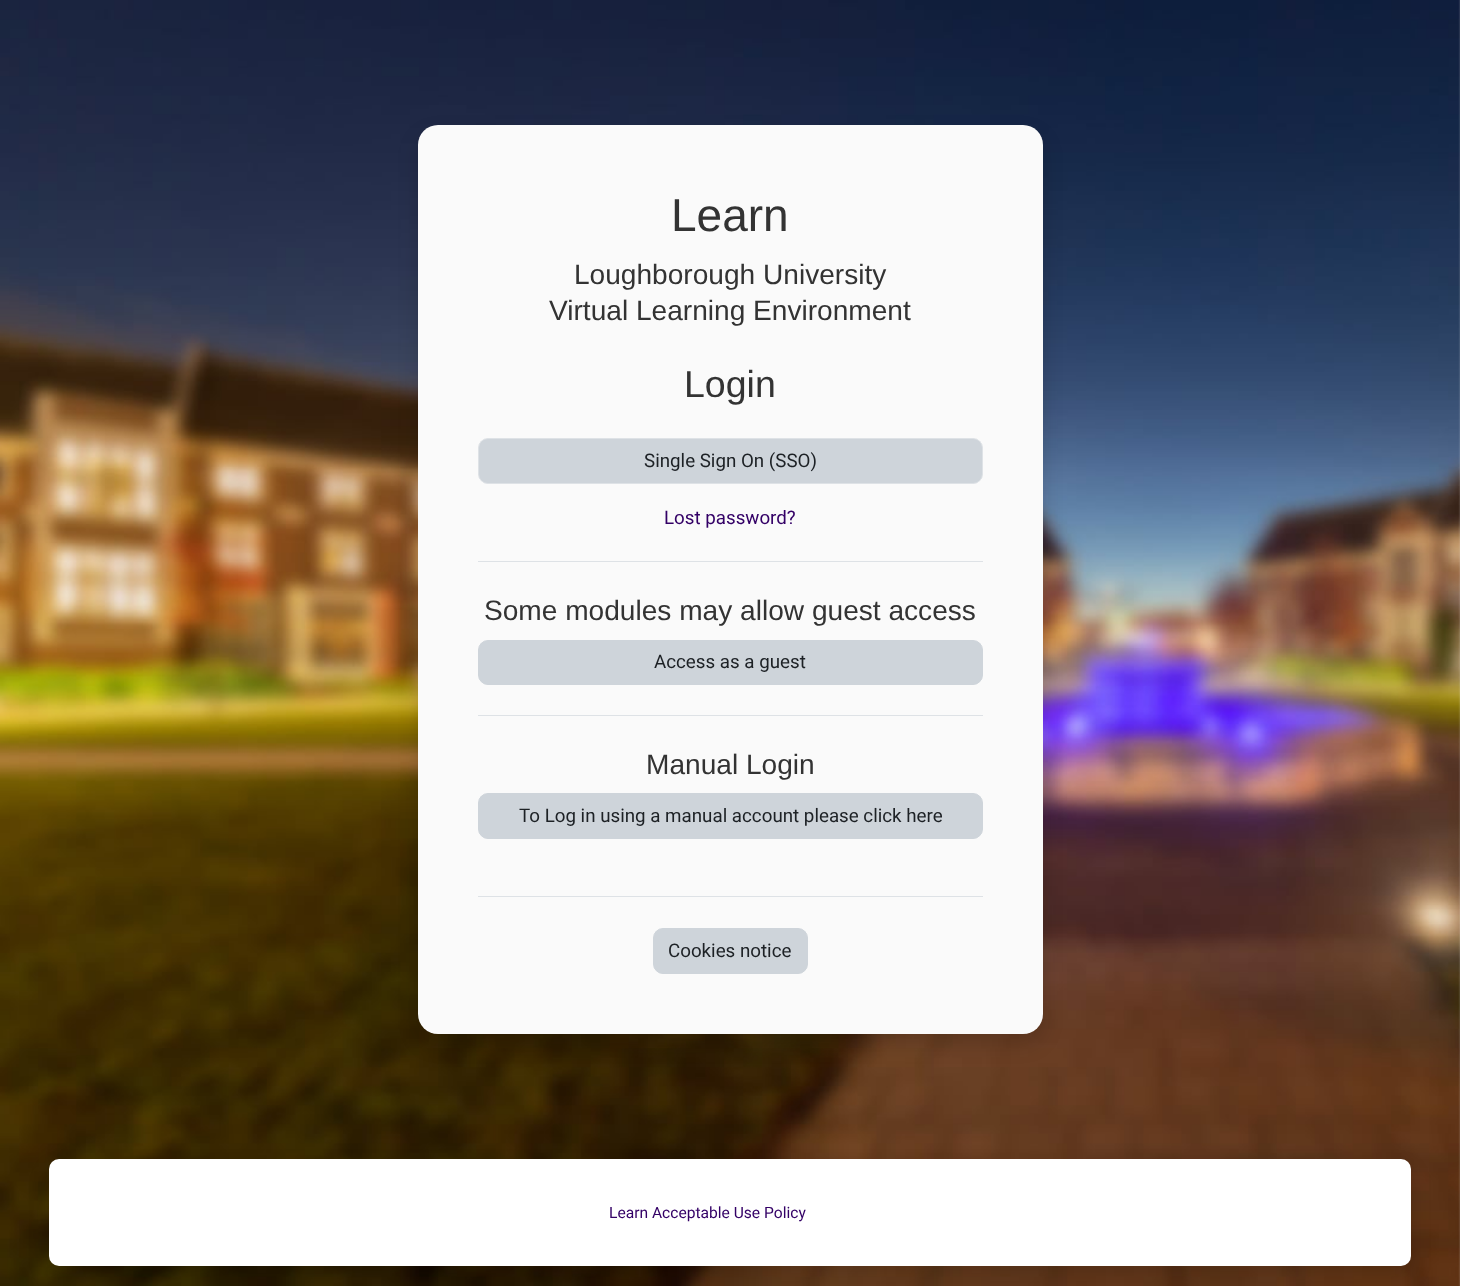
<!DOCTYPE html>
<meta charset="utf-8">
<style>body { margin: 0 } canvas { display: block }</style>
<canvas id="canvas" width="1460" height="1286"></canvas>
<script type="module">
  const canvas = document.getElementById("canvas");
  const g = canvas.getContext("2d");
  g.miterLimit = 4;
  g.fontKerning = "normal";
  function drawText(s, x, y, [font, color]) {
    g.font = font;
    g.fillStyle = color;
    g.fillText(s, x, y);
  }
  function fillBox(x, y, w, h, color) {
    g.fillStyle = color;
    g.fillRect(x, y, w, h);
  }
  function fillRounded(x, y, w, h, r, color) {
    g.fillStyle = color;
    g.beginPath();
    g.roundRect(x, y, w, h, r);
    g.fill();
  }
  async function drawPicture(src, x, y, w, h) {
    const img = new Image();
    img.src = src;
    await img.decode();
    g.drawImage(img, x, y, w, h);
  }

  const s1 = ["46px Liberation Sans", "#333333"];
  const s2 = ["28.1px Liberation Sans", "#333333"];
  const s3 = ["37.5px Liberation Sans", "#333333"];
  const s4 = ["18.75px Roboto", "#1D2125"];
  const s5 = ["18.75px Roboto", "#330066"];
  const s6 = ["15.6px Roboto", "#330066"];

  fillBox(0, 0, 1460, 1286, "#FFFFFF");
  await drawPicture("pic1.png", 0, 0, 1460, 1286);
  g.fillStyle = "rgba(0, 0, 0, 0.15)";
  g.filter = "blur(10px)";
  g.beginPath();
  g.roundRect(418, 135, 625, 909, 20);
  g.fill();
  g.filter = "none";
  fillRounded(418, 125, 625, 909, 20, "#FAFAFA");
  drawText("Learn", 671, 231, s1);
  drawText("Loughborough University", 574, 284, s2);
  drawText("Virtual Learning Environment", 549, 320, s2);
  drawText("Login", 684, 397, s3);
  g.fillStyle = "#CED4DA";
  g.beginPath();
  g.roundRect(478.5, 438.5, 504, 45, 9.5);
  g.fill();
  g.strokeStyle = "#DEE2E6";
  g.stroke();
  drawText("Single Sign On (SSO)", 644, 467, s4);
  drawText("Lost password?", 664, 524, s5);
  fillBox(478, 561, 505, 1, "#DEE2E6");
  drawText("Some modules may allow guest access", 484, 620, s2);
  g.fillStyle = "#CED4DA";
  g.beginPath();
  g.roundRect(478.5, 640.5, 504, 44, 9.5);
  g.fill();
  g.strokeStyle = "#CED4DA";
  g.stroke();
  drawText("Access as a guest", 654, 668, s4);
  fillBox(478, 715, 505, 1, "#DEE2E6");
  drawText("Manual Login", 646, 774, s2);
  g.fillStyle = "#CED4DA";
  g.beginPath();
  g.roundRect(478.5, 793.5, 504, 45, 9.5);
  g.fill();
  g.stroke();
  drawText("To Log in using a manual account please click here", 519, 822, s4);
  fillBox(478, 896, 505, 1, "#DEE2E6");
  g.fillStyle = "#CED4DA";
  g.beginPath();
  g.roundRect(653.5, 928.5, 154, 45, 9.5);
  g.fill();
  g.stroke();
  drawText("Cookies notice", 668, 957, s4);
  g.fillStyle = "rgba(0, 0, 0, 0.15)";
  g.filter = "blur(10px)";
  g.beginPath();
  g.roundRect(49, 1169, 1362, 107, 10);
  g.fill();
  g.filter = "none";
  fillRounded(49, 1159, 1362, 107, 10, "#FFFFFF");
  drawText("Learn Acceptable Use Policy", 609, 1218, s6);
</script>
